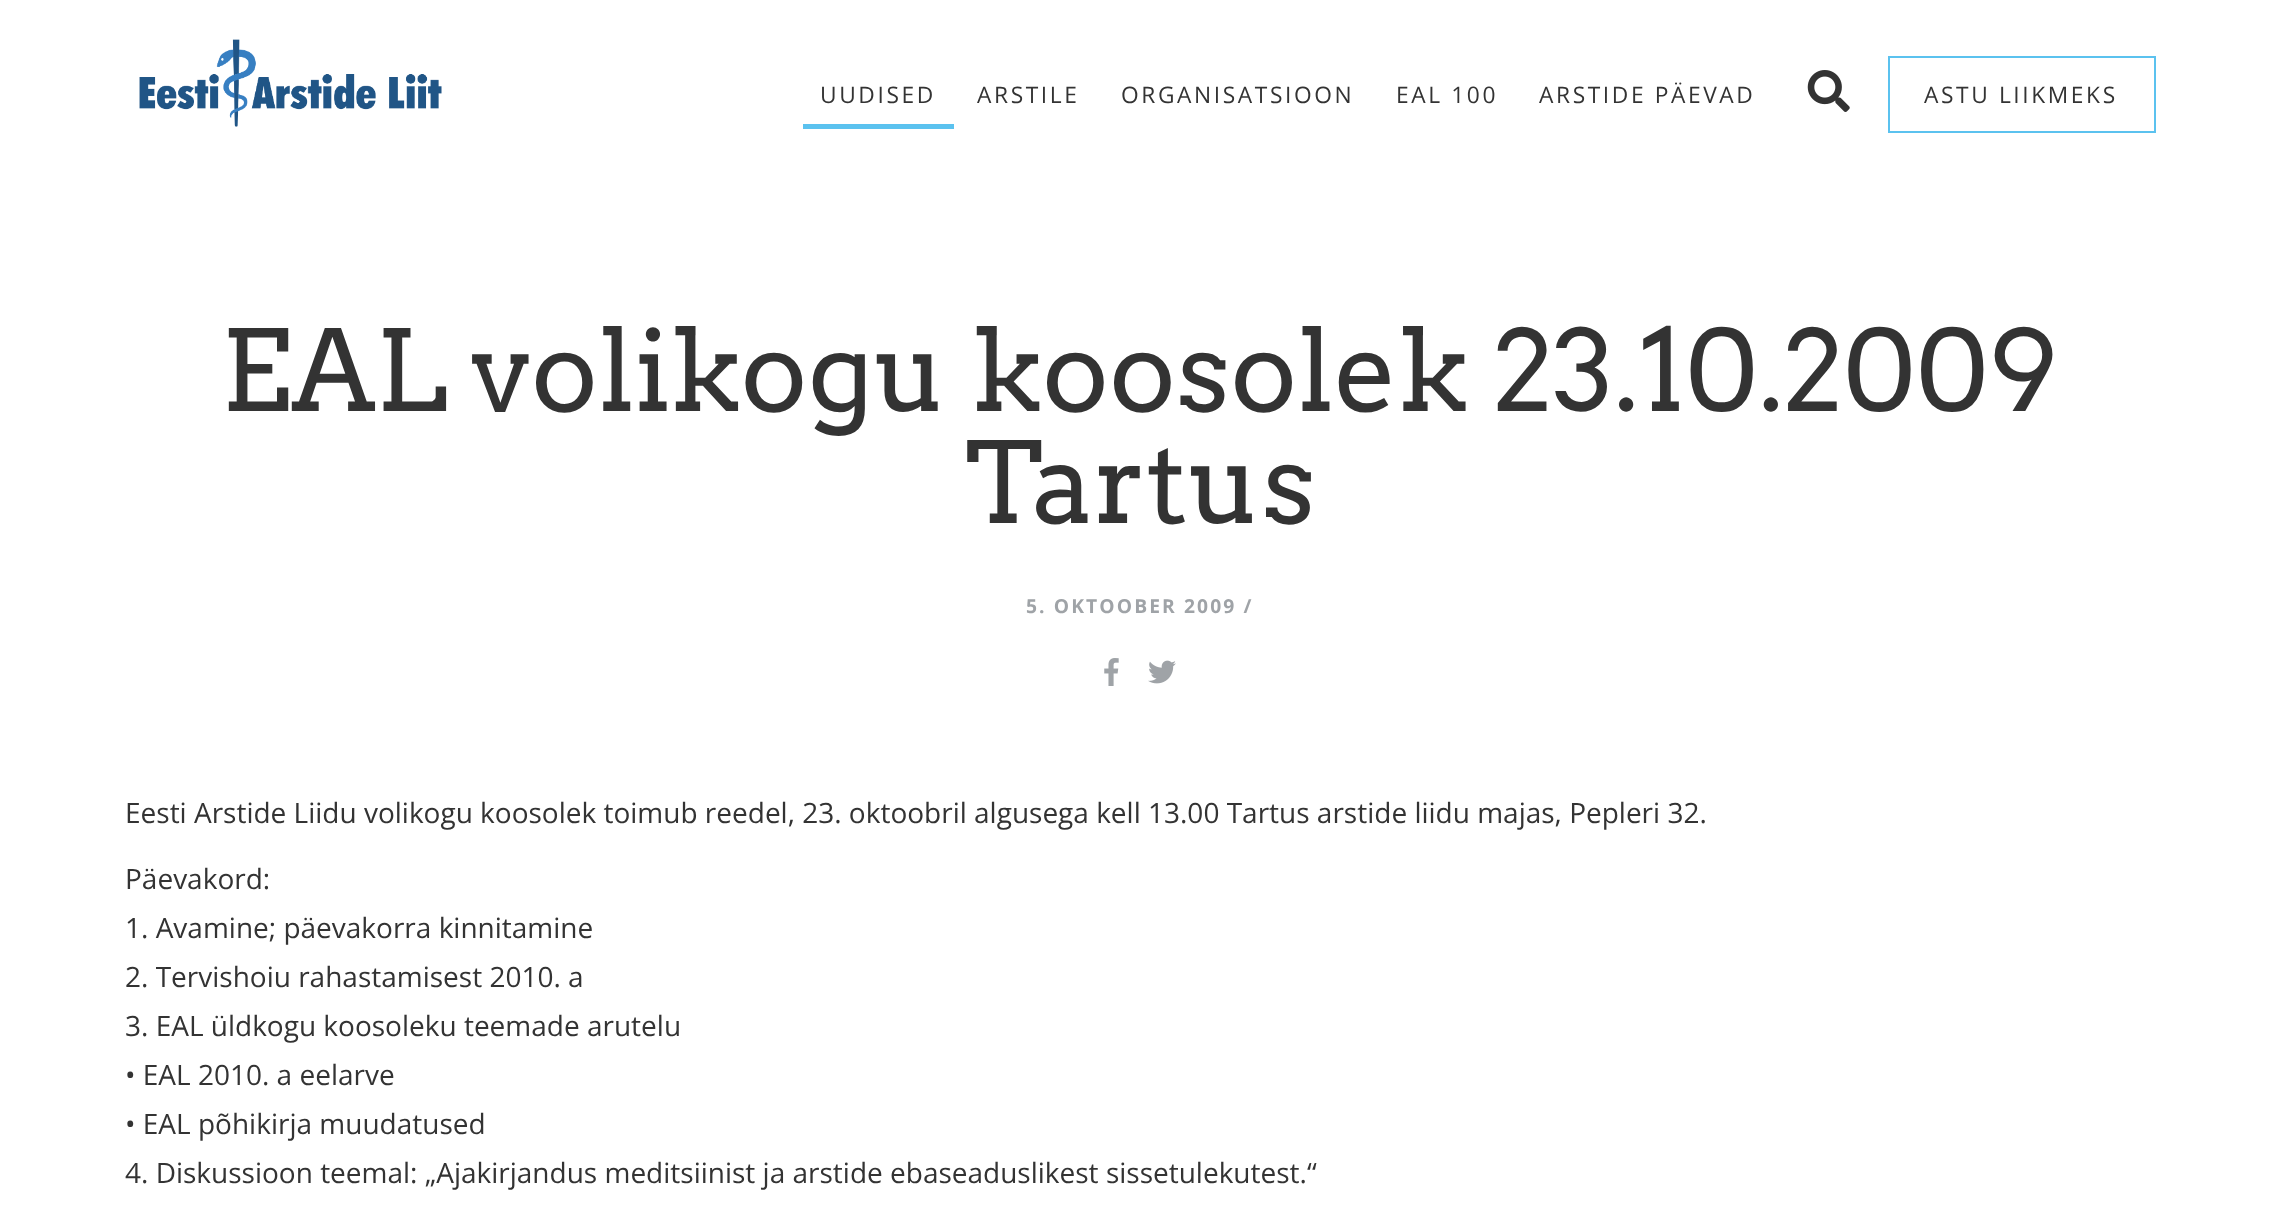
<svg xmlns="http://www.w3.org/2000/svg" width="2280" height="1219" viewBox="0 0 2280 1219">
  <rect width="100%" height="100%" fill="#ffffff"/>
  <image x="139" y="39" width="303" height="88" href="img1.png"/>
  <rect x="803" y="124" width="151" height="5" fill="#5bc2ef"/>
  <text x="820" y="103" font-family="Open Sans" font-size="22.75" letter-spacing="2.6" fill="#333333">UUDISED</text>
  <text x="977" y="103" font-family="Open Sans" font-size="22.75" letter-spacing="2.6" fill="#333333">ARSTILE</text>
  <text x="1121" y="103" font-family="Open Sans" font-size="22.75" letter-spacing="2.6" fill="#333333">ORGANISATSIOON</text>
  <text x="1396" y="103" font-family="Open Sans" font-size="22.75" letter-spacing="2.6" fill="#333333">EAL 100</text>
  <text x="1539" y="103" font-family="Open Sans" font-size="22.75" letter-spacing="2.6" fill="#333333">ARSTIDE PÄEVAD</text>
  <image x="1807" y="70" width="43" height="42" href="img2.png"/>
  <rect x="1889" y="57" width="266" height="75" fill="none" stroke="#5bc2ef" stroke-width="2"/>
  <text x="1924" y="103" font-family="Open Sans" font-size="22.75" letter-spacing="2.6" fill="#333333">ASTU LIIKMEKS</text>
  <text x="221" y="411" font-family="Arvo" font-size="112" fill="#333333">EAL volikogu koosolek 23.10.2009</text>
  <text x="965" y="523" font-family="Arvo" font-size="112" fill="#333333">Tartus</text>
  <text x="1026" y="613" font-family="Open Sans" font-size="19.25" font-weight="bold" letter-spacing="2.1" fill="#9fa3a7">5. OKTOOBER 2009 /</text>
  <image x="1104" y="658" width="15" height="28" href="img3.png"/>
  <image x="1148" y="660" width="28" height="24" href="img4.png"/>
  <text x="125" y="823" font-family="Open Sans" font-size="28" fill="#333333">Eesti Arstide Liidu volikogu koosolek toimub reedel, 23. oktoobril algusega kell 13.00 Tartus arstide liidu majas, Pepleri 32.</text>
  <text x="125" y="889" font-family="Open Sans" font-size="28" fill="#333333">Päevakord:</text>
  <text x="125" y="938" font-family="Open Sans" font-size="28" fill="#333333">1. Avamine; päevakorra kinnitamine</text>
  <text x="125" y="987" font-family="Open Sans" font-size="28" fill="#333333">2. Tervishoiu rahastamisest 2010. a</text>
  <text x="125" y="1036" font-family="Open Sans" font-size="28" fill="#333333">3. EAL üldkogu koosoleku teemade arutelu</text>
  <text x="125" y="1085" font-family="Open Sans" font-size="28" fill="#333333">• EAL 2010. a eelarve</text>
  <text x="125" y="1134" font-family="Open Sans" font-size="28" fill="#333333">• EAL põhikirja muudatused</text>
  <text x="125" y="1183" font-family="Open Sans" font-size="28" fill="#333333">4. Diskussioon teemal: „Ajakirjandus meditsiinist ja arstide ebaseaduslikest sissetulekutest.“</text>
</svg>
